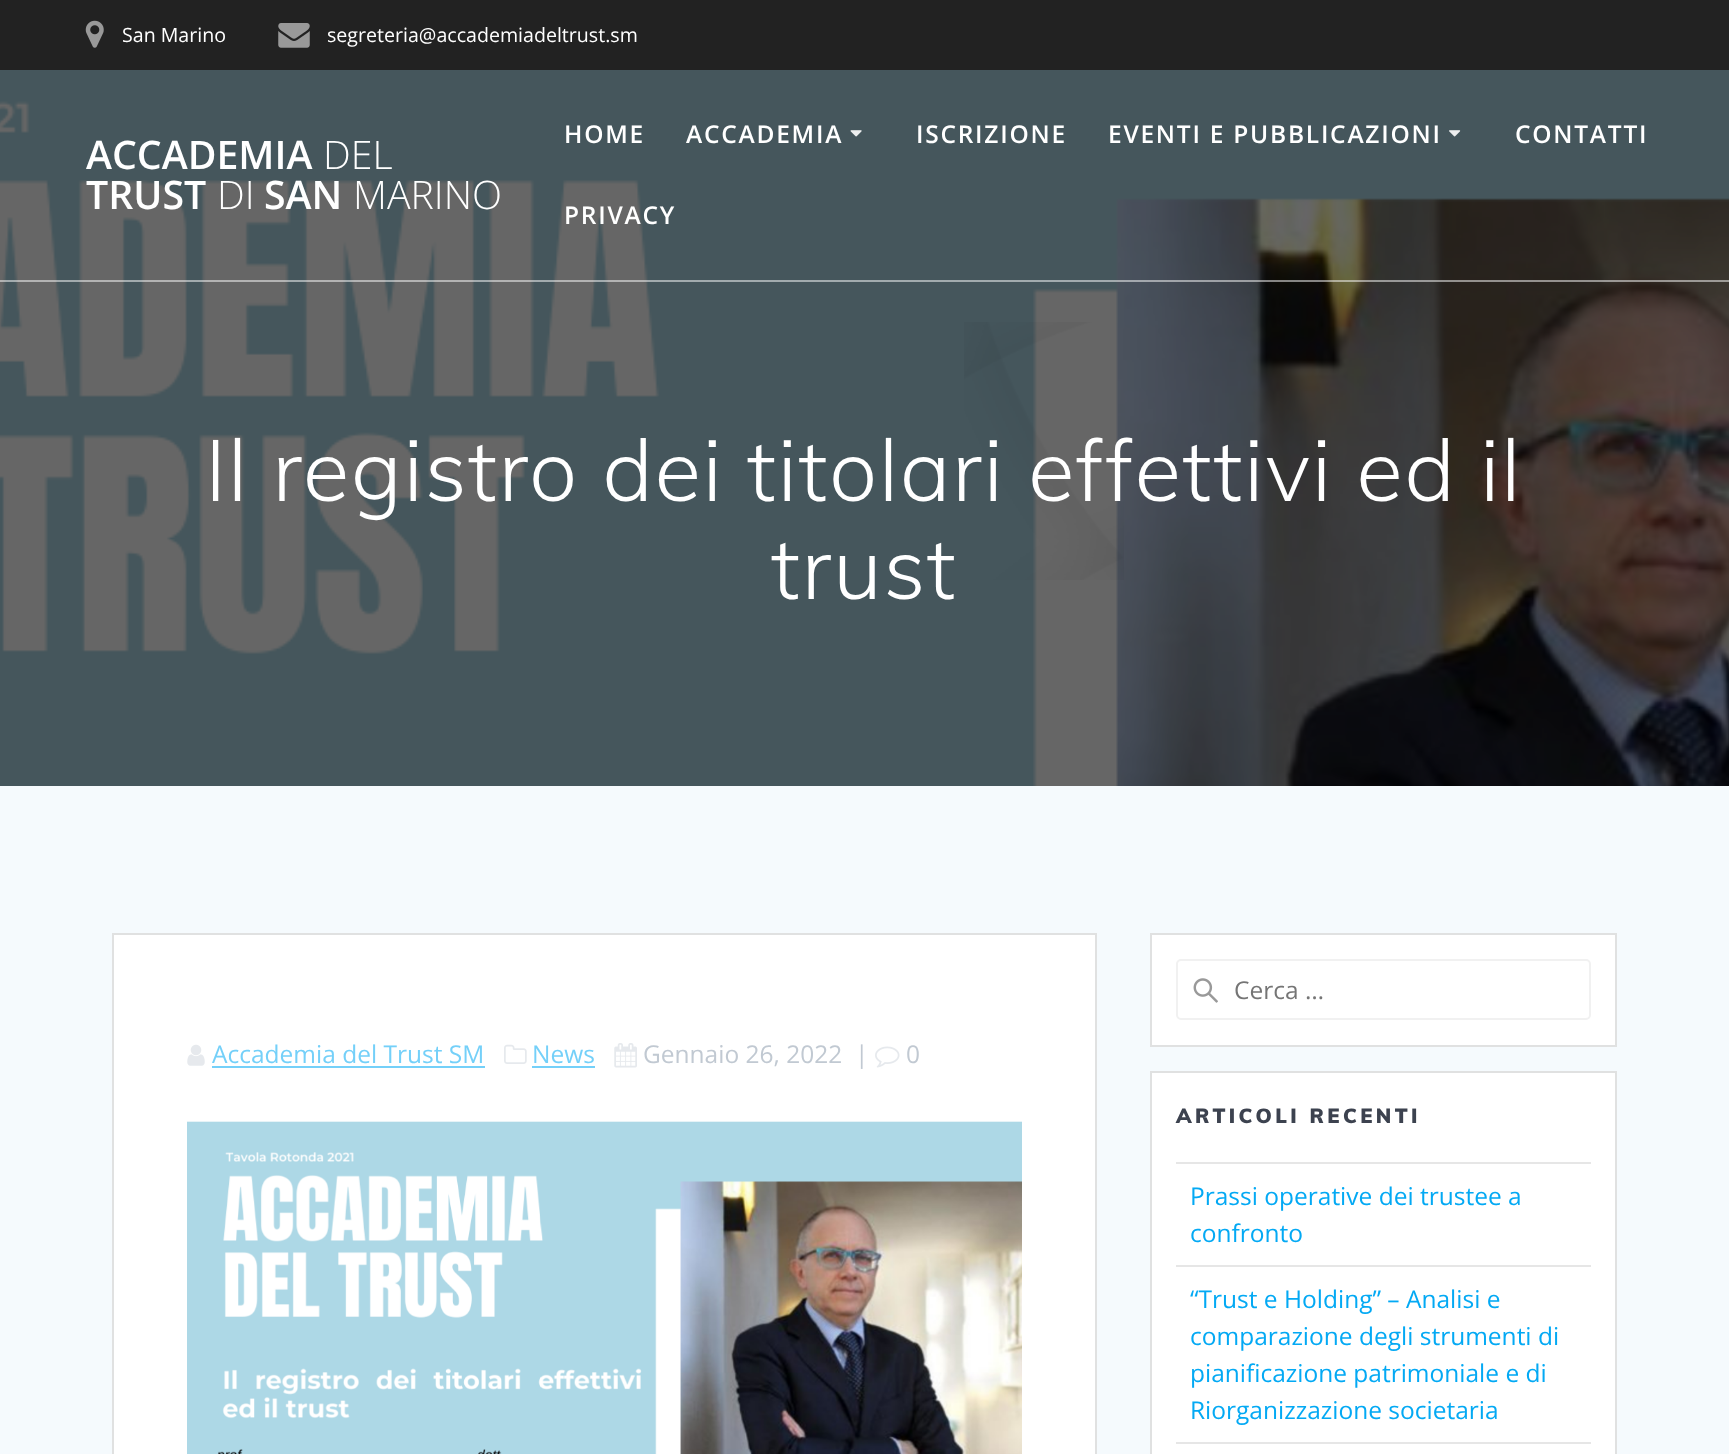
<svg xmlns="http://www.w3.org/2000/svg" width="1729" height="1454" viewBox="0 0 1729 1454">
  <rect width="100%" height="100%" fill="#ffffff"/>
  <rect x="0" y="0" width="1729" height="70" fill="#222222"/>
  <image x="85" y="20" width="19" height="28" href="img1.png"/>
  <text x="122" y="42" font-family="Open Sans" font-size="19.6" fill="#ffffff">San Marino</text>
  <image x="278" y="23" width="32" height="25" href="img2.png"/>
  <text x="327" y="42" font-family="Open Sans" font-size="19.6" fill="#ffffff">segreteria@accademiadeltrust.sm</text>
  <image x="0" y="70" width="1729" height="716" href="img5.png"/>
  <rect x="0" y="280" width="1729" height="2" fill="#ffffff" fill-opacity="0.5"/>
  <text x="86" y="169" font-family="Open Sans" font-size="39.25" font-weight="600" fill="#ffffff">ACCADEMIA</text>
  <text x="323" y="169" font-family="Open Sans" font-size="39.25" font-weight="300" fill="#ffffff">DEL</text>
  <text x="86" y="209" font-family="Open Sans" font-size="39.25" font-weight="600" fill="#ffffff">TRUST</text>
  <text x="217" y="209" font-family="Open Sans" font-size="39.25" font-weight="300" fill="#ffffff">DI</text>
  <text x="264" y="209" font-family="Open Sans" font-size="39.25" font-weight="600" fill="#ffffff">SAN</text>
  <text x="353" y="209" font-family="Open Sans" font-size="39.25" font-weight="300" fill="#ffffff">MARINO</text>
  <text x="564" y="143" font-family="Open Sans" font-size="24.5" font-weight="600" letter-spacing="1.75" fill="#ffffff">HOME</text>
  <text x="686" y="143" font-family="Open Sans" font-size="24.5" font-weight="600" letter-spacing="1.75" fill="#ffffff">ACCADEMIA</text>
  <image x="850" y="130" width="12" height="7" href="img3.png"/>
  <text x="916" y="143" font-family="Open Sans" font-size="24.5" font-weight="600" letter-spacing="1.75" fill="#ffffff">ISCRIZIONE</text>
  <text x="1108" y="143" font-family="Open Sans" font-size="24.5" font-weight="600" letter-spacing="1.75" fill="#ffffff">EVENTI E PUBBLICAZIONI</text>
  <image x="1449" y="130" width="12" height="7" href="img4.png"/>
  <text x="1515" y="143" font-family="Open Sans" font-size="24.5" font-weight="600" letter-spacing="1.75" fill="#ffffff">CONTATTI</text>
  <text x="564" y="224" font-family="Open Sans" font-size="24.5" font-weight="600" letter-spacing="1.75" fill="#ffffff">PRIVACY</text>
  <image x="964" y="322" width="160" height="258" href="img6.png"/>
  <text x="205" y="501" font-family="Muli" font-size="85.75" font-weight="300" letter-spacing="1.55" fill="#ffffff">Il registro dei titolari effettivi ed il</text>
  <text x="771" y="599" font-family="Muli" font-size="85.75" font-weight="300" letter-spacing="1.55" fill="#ffffff">trust</text>
  <rect x="0" y="786" width="1729" height="668" fill="#f5fafd"/>
  <rect x="113" y="934" width="983" height="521" fill="#ffffff" stroke="#e0e1e1" stroke-width="2"/>
  <image x="187" y="1044" width="18" height="22" href="img7.png"/>
  <text x="212" y="1063" font-family="Open Sans" font-size="24.5" fill="#74d0f9">Accademia del Trust SM</text>
  <rect x="212" y="1066" width="273" height="2" fill="#74d0f9"/>
  <image x="504" y="1044" width="23" height="20" href="img8.png"/>
  <text x="532" y="1063" font-family="Open Sans" font-size="24.5" fill="#74d0f9">News</text>
  <rect x="532" y="1066" width="63" height="2" fill="#74d0f9"/>
  <image x="614" y="1043" width="23" height="25" href="img9.png"/>
  <text x="643" y="1063" font-family="Open Sans" font-size="24.5" fill="#c1c9d2">Gennaio 26, 2022</text>
  <text x="855" y="1063" font-family="Open Sans" font-size="24.5" fill="#c1c9d2">|</text>
  <image x="875" y="1046" width="25" height="22" href="img10.png"/>
  <text x="906" y="1063" font-family="Open Sans" font-size="24.5" fill="#c1c9d2">0</text>
  <image x="187" y="1121" width="835" height="333" href="img11.png"/>
  <rect x="1151" y="934" width="465" height="112" fill="#ffffff" stroke="#e0e1e1" stroke-width="2"/>
  <image x="1193" y="978" width="25" height="25" href="img12.png"/>
  <rect x="1177" y="960" width="413" height="59" rx="4" fill="none" stroke="#f1f1f1" stroke-width="2"/>
  <text x="1234" y="999" font-family="Open Sans" font-size="24.5" fill="#757575">Cerca …</text>
  <rect x="1151" y="1072" width="465" height="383" fill="#ffffff" stroke="#e0e1e1" stroke-width="2"/>
  <text x="1176" y="1123" font-family="Muli" font-size="20.25" font-weight="900" letter-spacing="3.4" fill="#3c424f">ARTICOLI RECENTI</text>
  <rect x="1176" y="1162" width="415" height="2" fill="#e6e6e6"/>
  <text x="1190" y="1205" font-family="Open Sans" font-size="24.5" fill="#03a9f4">Prassi operative dei trustee a</text>
  <text x="1190" y="1242" font-family="Open Sans" font-size="24.5" fill="#03a9f4">confronto</text>
  <rect x="1176" y="1265" width="415" height="2" fill="#e6e6e6"/>
  <text x="1190" y="1308" font-family="Open Sans" font-size="24.5" fill="#03a9f4">“Trust e Holding” – Analisi e</text>
  <text x="1190" y="1345" font-family="Open Sans" font-size="24.5" fill="#03a9f4">comparazione degli strumenti di</text>
  <text x="1190" y="1382" font-family="Open Sans" font-size="24.5" fill="#03a9f4">pianificazione patrimoniale e di</text>
  <text x="1190" y="1419" font-family="Open Sans" font-size="24.5" fill="#03a9f4">Riorganizzazione societaria</text>
  <rect x="1176" y="1442" width="415" height="2" fill="#e6e6e6"/>
</svg>
